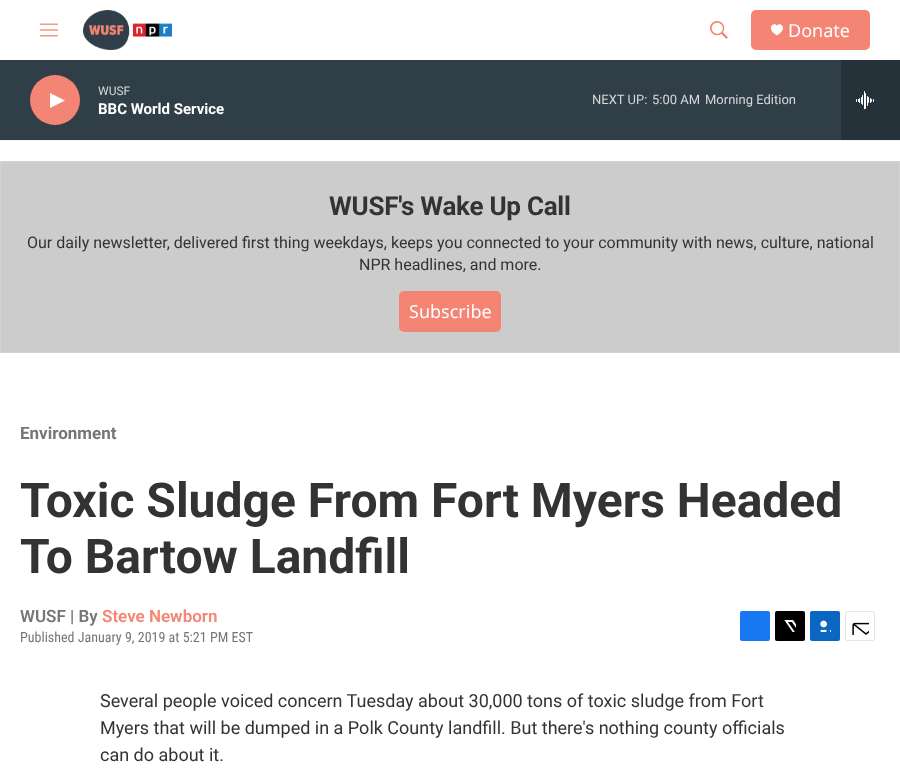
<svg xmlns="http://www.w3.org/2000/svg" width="900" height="771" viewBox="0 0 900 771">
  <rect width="100%" height="100%" fill="#ffffff"/>
  <rect x="0" y="140" width="900" height="1" fill="#f5f5f5"/>
  <image x="40" y="23" width="18" height="14" href="img1.png"/>
  <image x="83" y="10" width="89" height="40" href="img2.png"/>
  <image x="710" y="21" width="18" height="18" href="img3.png"/>
  <rect x="751" y="10" width="119" height="40" rx="5" fill="#f48474"/>
  <path d="M777 26C775 21 764.5 28 777 35.5C789.5 28 779 21 777 26Z" fill="#ffffff"/>
  <text x="788" y="37" font-family="Noto Sans" font-size="18" fill="#ffffff">Donate</text>
  <rect x="0" y="60" width="841" height="80" fill="#303e48"/>
  <circle cx="55" cy="100" r="25" fill="#f48474"/>
  <path d="M50 93L65 100.5L50 108Z" fill="#ffffff"/>
  <text x="98" y="95" font-family="Roboto" font-size="12" fill="#d6d8da">WUSF</text>
  <text x="98" y="114" font-family="'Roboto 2'" font-size="15" font-weight="bold" fill="#ffffff">BBC World Service</text>
  <text x="592" y="104" font-family="Roboto" font-size="13" fill="#d6d8da">NEXT UP:</text>
  <text x="652" y="104" font-family="Roboto" font-size="13" fill="#d6d8da">5:00 AM</text>
  <text x="705" y="104" font-family="Roboto" font-size="13" fill="#d6d8da">Morning Edition</text>
  <rect x="841" y="60" width="59" height="80" fill="#26323a"/>
  <image x="856" y="91" width="18" height="18" href="img4.png"/>
  <rect x="0.5" y="161.5" width="899" height="191" fill="#cccccc" stroke="#d3d3d3"/>
  <text x="329" y="215" font-family="Roboto" font-size="26" font-weight="bold" letter-spacing="-0.25" fill="#333333">WUSF's Wake Up Call</text>
  <text x="27" y="248" font-family="Roboto" font-size="16" fill="#333333">Our daily newsletter, delivered first thing weekdays, keeps you connected to your community with news, culture, national</text>
  <text x="359" y="270" font-family="Roboto" font-size="16" fill="#333333">NPR headlines, and more.</text>
  <rect x="399" y="291" width="102" height="41" rx="5" fill="#f48474"/>
  <text x="409" y="318" font-family="Noto Sans" font-size="18" fill="#ffffff">Subscribe</text>
  <text x="20" y="439" font-family="Roboto" font-size="17" font-weight="bold" fill="#767676">Environment</text>
  <text x="20" y="517" font-family="Roboto" font-size="48" font-weight="bold" fill="#333333">Toxic Sludge From Fort Myers Headed</text>
  <text x="20" y="573" font-family="Roboto" font-size="48" font-weight="bold" fill="#333333">To Bartow Landfill</text>
  <text x="20" y="622" font-family="Roboto" font-size="17" font-weight="600" fill="#767676">WUSF | By</text>
  <text x="102" y="622" font-family="Roboto" font-size="17" font-weight="600" fill="#f48474">Steve Newborn</text>
  <text x="20" y="642" font-family="Roboto Condensed" font-size="14" fill="#767676">Published January 9, 2019 at 5:21 PM EST</text>
  <rect x="740" y="611" width="30" height="30" rx="2" fill="#1778f2"/>
  <rect x="775" y="611" width="30" height="30" rx="2" fill="#000000"/>
  <image x="784" y="620" width="12" height="12" href="img5.png"/>
  <rect x="810" y="611" width="30" height="30" rx="2" fill="#0a66c1"/>
  <image x="820" y="620" width="11" height="12" href="img6.png"/>
  <rect x="845.5" y="611.5" width="29" height="29" rx="1.5" fill="none" stroke="#e6e6e6"/>
  <image x="852" y="622" width="17" height="13" href="img7.png"/>
  <text x="100" y="707" font-family="Roboto" font-size="18" fill="#333333">Several people voiced concern Tuesday about 30,000 tons of toxic sludge from Fort</text>
  <text x="100" y="734" font-family="Roboto" font-size="18" fill="#333333">Myers that will be dumped in a Polk County landfill. But there's nothing county officials</text>
  <text x="100" y="761" font-family="Roboto" font-size="18" fill="#333333">can do about it.</text>
</svg>
